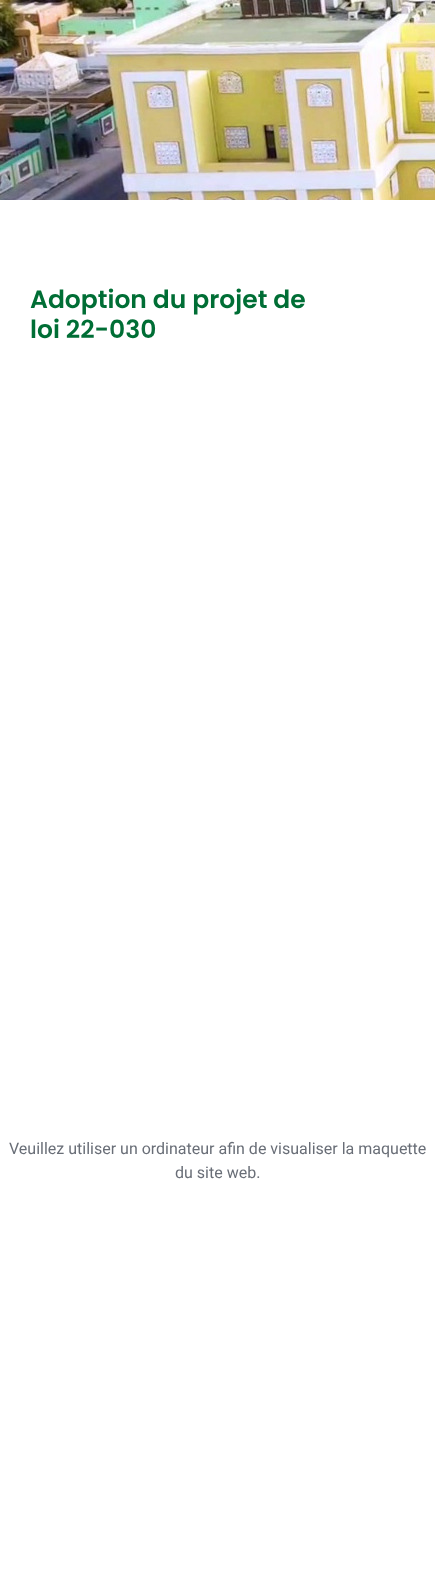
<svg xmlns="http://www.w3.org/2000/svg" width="435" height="1578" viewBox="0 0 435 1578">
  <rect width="100%" height="100%" fill="#ffffff"/>
  <image x="0" y="0" width="435" height="200" href="img1.png"/>
  <text x="30" y="308" font-family="Poppins" font-size="25" font-weight="600" fill="#006e35">Adoption du projet de</text>
  <text x="30" y="338" font-family="Poppins" font-size="25" font-weight="600" fill="#006e35">loi 22-030</text>
  <text x="9" y="1154" font-family="Roboto" font-size="16" fill="#696e77">Veuillez utiliser un ordinateur afin de visualiser la maquette</text>
  <text x="175" y="1178" font-family="Roboto" font-size="16" fill="#696e77">du site web.</text>
</svg>
